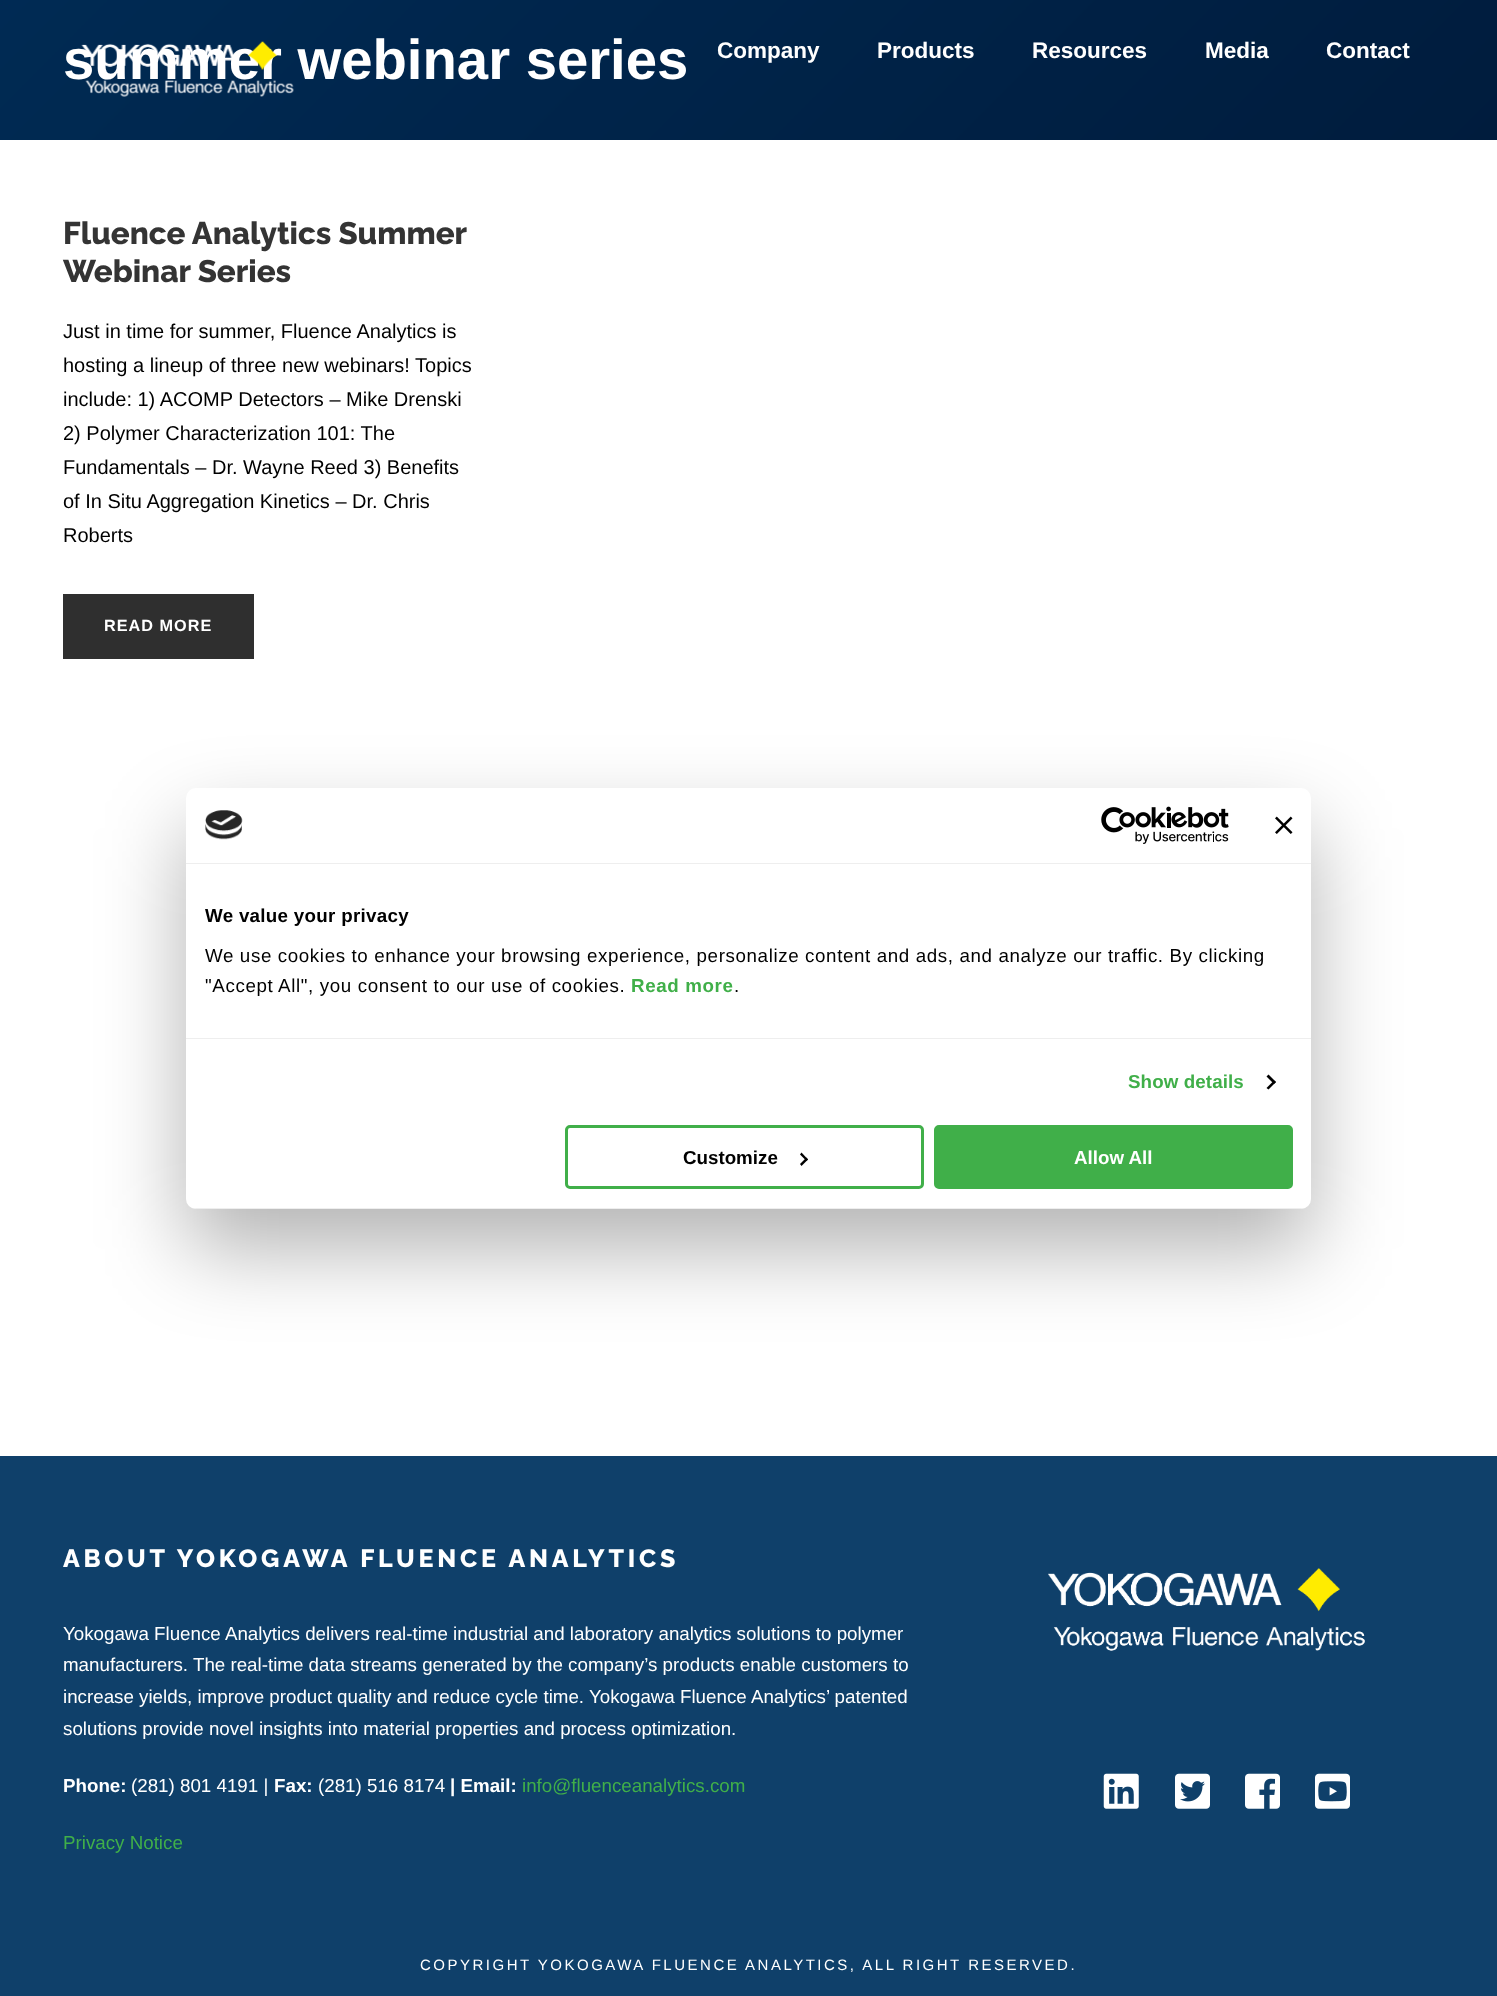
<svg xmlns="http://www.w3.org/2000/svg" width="1497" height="1996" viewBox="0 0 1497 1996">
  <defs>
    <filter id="blur1" x="-50%" y="-200%" width="200%" height="500%"><feGaussianBlur stdDeviation="42.5"/></filter>
    <clipPath id="clip1"><rect x="186" y="788" width="1125" height="421" rx="10"/></clipPath>
  </defs>
  <rect width="100%" height="100%" fill="#ffffff"/>
  <image x="0" y="0" width="1497" height="140" href="img1.png"/>
  <text x="63" y="79" font-family="Liberation Sans" font-size="56.25" font-weight="bold" fill="#ffffff">summer webinar series</text>
  <image x="81" y="41" width="213" height="56" href="img2.png"/>
  <text x="717" y="58" font-family="Liberation Sans" font-size="22.5" font-weight="bold" fill="#ffffff">Company</text>
  <text x="877" y="58" font-family="Liberation Sans" font-size="22.5" font-weight="bold" fill="#ffffff">Products</text>
  <text x="1032" y="58" font-family="Liberation Sans" font-size="22.5" font-weight="bold" fill="#ffffff">Resources</text>
  <text x="1205" y="58" font-family="Liberation Sans" font-size="22.5" font-weight="bold" fill="#ffffff">Media</text>
  <text x="1326" y="58" font-family="Liberation Sans" font-size="22.5" font-weight="bold" fill="#ffffff">Contact</text>
  <text x="63" y="244" font-family="Raleway" font-size="31.25" font-weight="800" fill="#343434">Fluence Analytics Summer</text>
  <text x="63" y="282" font-family="Raleway" font-size="31.25" font-weight="800" fill="#343434">Webinar Series</text>
  <text x="63" y="338" font-family="Liberation Sans" font-size="20" fill="#000000">Just in time for summer, Fluence Analytics is</text>
  <text x="63" y="372" font-family="Liberation Sans" font-size="20" fill="#000000">hosting a lineup of three new webinars! Topics</text>
  <text x="63" y="406" font-family="Liberation Sans" font-size="20" fill="#000000">include: 1) ACOMP Detectors – Mike Drenski</text>
  <text x="63" y="440" font-family="Liberation Sans" font-size="20" fill="#000000">2) Polymer Characterization 101: The</text>
  <text x="63" y="474" font-family="Liberation Sans" font-size="20" fill="#000000">Fundamentals – Dr. Wayne Reed 3) Benefits</text>
  <text x="63" y="508" font-family="Liberation Sans" font-size="20" fill="#000000">of In Situ Aggregation Kinetics – Dr. Chris</text>
  <text x="63" y="542" font-family="Liberation Sans" font-size="20" fill="#000000">Roberts</text>
  <rect x="63" y="594" width="191" height="65" fill="#2f2f2f"/>
  <text x="104" y="631" font-family="Liberation Sans" font-size="16.25" font-weight="bold" letter-spacing="1" fill="#ffffff">READ MORE</text>
  <rect x="0" y="1456" width="1497" height="540" fill="#0f406a"/>
  <text x="63" y="1567" font-family="Raleway" font-size="25" font-weight="800" letter-spacing="3.75" fill="#ffffff">ABOUT YOKOGAWA FLUENCE ANALYTICS</text>
  <text x="63" y="1640" font-family="Liberation Sans" font-size="18.75" fill="#ffffff">Yokogawa Fluence Analytics delivers real-time industrial and laboratory analytics solutions to polymer</text>
  <text x="63" y="1671" font-family="Liberation Sans" font-size="18.75" fill="#ffffff">manufacturers. The real-time data streams generated by the company’s products enable customers to</text>
  <text x="63" y="1703" font-family="Liberation Sans" font-size="18.75" fill="#ffffff">increase yields, improve product quality and reduce cycle time. Yokogawa Fluence Analytics’ patented</text>
  <text x="63" y="1735" font-family="Liberation Sans" font-size="18.75" fill="#ffffff">solutions provide novel insights into material properties and process optimization.</text>
  <text x="63" y="1792" font-family="Liberation Sans" font-size="18.75" font-weight="bold" fill="#ffffff">Phone:</text>
  <text x="131" y="1792" font-family="Liberation Sans" font-size="18.75" fill="#ffffff">(281) 801 4191 |</text>
  <text x="274" y="1792" font-family="Liberation Sans" font-size="18.75" font-weight="bold" fill="#ffffff">Fax:</text>
  <text x="318" y="1792" font-family="Liberation Sans" font-size="18.75" fill="#ffffff">(281) 516 8174</text>
  <text x="450" y="1792" font-family="Liberation Sans" font-size="18.75" font-weight="bold" fill="#ffffff">| Email:</text>
  <text x="522" y="1792" font-family="Liberation Sans" font-size="18.75" fill="#40af49">info@fluenceanalytics.com</text>
  <text x="63" y="1849" font-family="Liberation Sans" font-size="18.75" fill="#40af49">Privacy Notice</text>
  <image x="1048" y="1568" width="317" height="83" href="img3.png"/>
  <image x="1103" y="1773" width="36" height="36" href="img4.png"/>
  <image x="1175" y="1773" width="35" height="36" href="img5.png"/>
  <image x="1245" y="1773" width="35" height="36" href="img6.png"/>
  <image x="1315" y="1773" width="35" height="36" href="img7.png"/>
  <text x="420" y="1970" font-family="Liberation Sans" font-size="15" letter-spacing="2.5" fill="#ffffff">COPYRIGHT YOKOGAWA FLUENCE ANALYTICS, ALL RIGHT RESERVED.</text>
  <rect x="186" y="828" width="1125" height="421" rx="10" fill="#000000" fill-opacity="0.3" filter="url(#blur1)"/>
  <rect x="186" y="788" width="1125" height="421" rx="10" fill="#ffffff"/>
  <rect x="186" y="863" width="1125" height="1" fill="#eeeeee"/>
  <image x="205" y="810" width="38" height="30" href="img8.png"/>
  <image x="1101" y="806" width="128" height="38" href="img9.png"/>
  <image x="1275" y="816" width="18" height="18" href="img10.png"/>
  <rect x="186" y="1038" width="1125" height="1" fill="#eeeeee"/>
  <text x="205" y="922" font-family="Liberation Sans" font-size="18.75" font-weight="bold" letter-spacing="0.3" fill="#000000">We value your privacy</text>
  <text x="205" y="962" font-family="Liberation Sans" font-size="18.75" letter-spacing="0.62" fill="#000000">We use cookies to enhance your browsing experience, personalize content and ads, and analyze our traffic. By clicking</text>
  <text x="205" y="992" font-family="Liberation Sans" font-size="18.75" letter-spacing="0.62" fill="#000000">"Accept All", you consent to our use of cookies.</text>
  <text x="631" y="992" font-family="Liberation Sans" font-size="18.75" font-weight="bold" letter-spacing="0.62" fill="#40af49">Read more</text>
  <text x="734" y="992" font-family="Liberation Sans" font-size="18.75" letter-spacing="0.62" fill="#000000">.</text>
  <text x="1128" y="1088" font-family="Liberation Sans" font-size="18.75" font-weight="bold" letter-spacing="0.1" fill="#40af49">Show details</text>
  <path d="M1268.5 1074.5L1276 1082L1274 1084L1266.5 1076.5Z" fill="#000000"/>
  <path d="M1274 1080.5L1276 1082L1268.5 1089.5L1266.5 1088Z" fill="#000000"/>
  <g clip-path="url(#clip1)">
    <rect x="186" y="1208" width="1125" height="1" fill="#eeeeee"/>
  </g>
  <rect x="566.5" y="1126.5" width="356" height="61" rx="3.5" fill="none" stroke="#40af49" stroke-width="3"/>
  <text x="683" y="1164" font-family="Liberation Sans" font-size="18.75" font-weight="bold" fill="#000000">Customize</text>
  <path d="M801.5 1152.5L808 1159.5L806.5 1161L800 1154.5Z" fill="#000000"/>
  <path d="M806.5 1157.5L808 1159.5L801.5 1166L800 1164Z" fill="#000000"/>
  <rect x="935.5" y="1126.5" width="356" height="61" rx="3.5" fill="#40af49" stroke="#40af49" stroke-width="3"/>
  <text x="1074" y="1164" font-family="Liberation Sans" font-size="18.75" font-weight="bold" fill="#ffffff">Allow All</text>
</svg>
